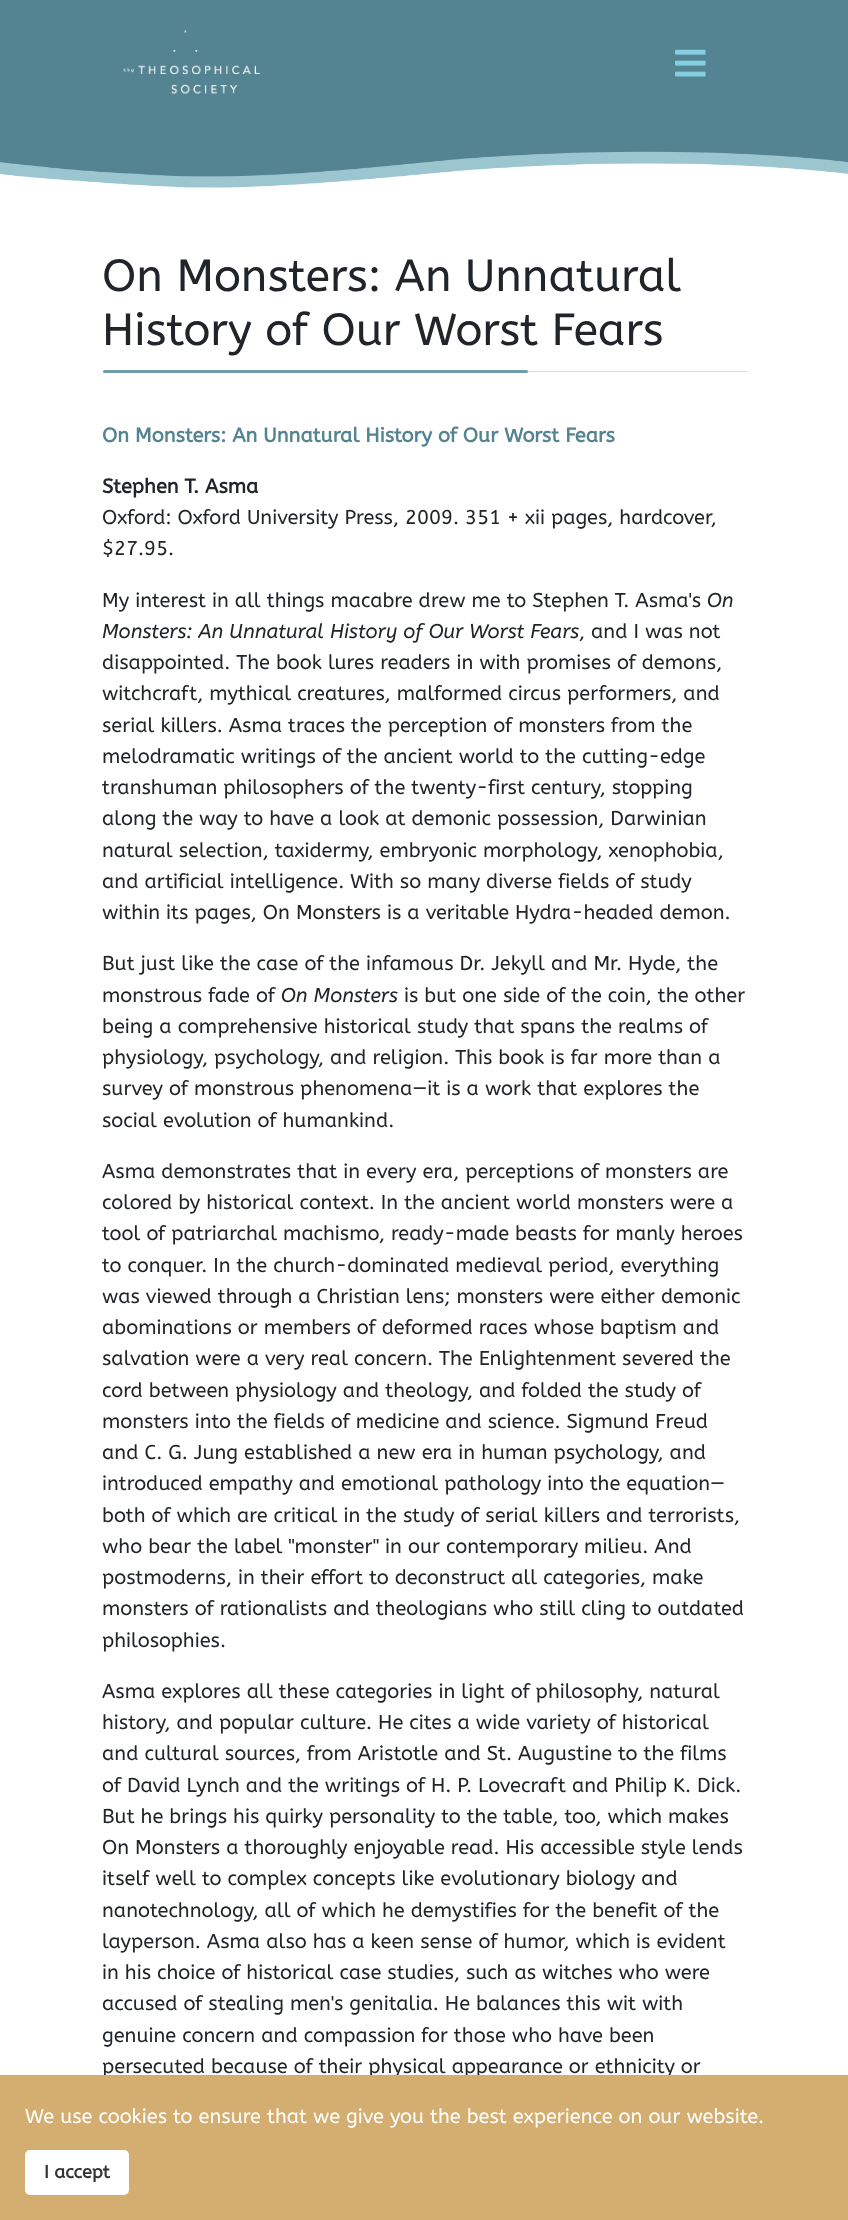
<svg xmlns="http://www.w3.org/2000/svg" width="848" height="2220" viewBox="0 0 848 2220">
  <rect width="100%" height="100%" fill="#ffffff"/>
  <image x="0" y="0" width="848" height="188" href="img1.png"/>
  <image x="123" y="30" width="137" height="64" href="img2.png"/>
  <image x="675" y="49" width="31" height="28" href="img3.png"/>
  <rect x="103" y="371" width="645" height="1" fill="#dddddd"/>
  <text x="102" y="291" font-family="ABeeZee" font-size="45" fill="#212529">On Monsters: An Unnatural</text>
  <text x="102" y="345" font-family="ABeeZee" font-size="45" fill="#212529">History of Our Worst Fears</text>
  <rect x="103" y="370" width="425" height="3" rx="1.5" fill="#6e9cab"/>
  <text x="102" y="442" font-family="ABeeZee" font-size="20" font-weight="bold" fill="#548392">On Monsters: An Unnatural History of Our Worst Fears</text>
  <text x="102" y="493" font-family="ABeeZee" font-size="20" font-weight="bold" fill="#212529">Stephen T. Asma</text>
  <text x="102" y="524" font-family="ABeeZee" font-size="20" fill="#212529">Oxford: Oxford University Press, 2009. 351 + xii pages, hardcover,</text>
  <text x="102" y="555" font-family="ABeeZee" font-size="20" fill="#212529">$27.95.</text>
  <text x="102" y="607" font-family="ABeeZee" font-size="20" fill="#212529">My interest in all things macabre drew me to Stephen T. Asma's</text>
  <text x="707" y="607" font-family="ABeeZee" font-size="20" font-style="italic" fill="#212529">On</text>
  <text x="102" y="638" font-family="ABeeZee" font-size="20" font-style="italic" fill="#212529">Monsters: An Unnatural History of Our Worst Fears</text>
  <text x="579" y="638" font-family="ABeeZee" font-size="20" fill="#212529">, and I was not</text>
  <text x="102" y="669" font-family="ABeeZee" font-size="20" fill="#212529">disappointed. The book lures readers in with promises of demons,</text>
  <text x="102" y="700" font-family="ABeeZee" font-size="20" fill="#212529">witchcraft, mythical creatures, malformed circus performers, and</text>
  <text x="102" y="732" font-family="ABeeZee" font-size="20" fill="#212529">serial killers. Asma traces the perception of monsters from the</text>
  <text x="102" y="763" font-family="ABeeZee" font-size="20" fill="#212529">melodramatic writings of the ancient world to the cutting-edge</text>
  <text x="102" y="794" font-family="ABeeZee" font-size="20" fill="#212529">transhuman philosophers of the twenty-first century, stopping</text>
  <text x="102" y="825" font-family="ABeeZee" font-size="20" fill="#212529">along the way to have a look at demonic possession, Darwinian</text>
  <text x="102" y="857" font-family="ABeeZee" font-size="20" fill="#212529">natural selection, taxidermy, embryonic morphology, xenophobia,</text>
  <text x="102" y="888" font-family="ABeeZee" font-size="20" fill="#212529">and artificial intelligence. With so many diverse fields of study</text>
  <text x="102" y="919" font-family="ABeeZee" font-size="20" fill="#212529">within its pages, On Monsters is a veritable Hydra-headed demon.</text>
  <text x="102" y="970" font-family="ABeeZee" font-size="20" fill="#212529">But just like the case of the infamous Dr. Jekyll and Mr. Hyde, the</text>
  <text x="102" y="1002" font-family="ABeeZee" font-size="20" fill="#212529">monstrous fade of</text>
  <text x="281" y="1002" font-family="ABeeZee" font-size="20" font-style="italic" fill="#212529">On Monsters</text>
  <text x="404" y="1002" font-family="ABeeZee" font-size="20" fill="#212529">is but one side of the coin, the other</text>
  <text x="102" y="1033" font-family="ABeeZee" font-size="20" fill="#212529">being a comprehensive historical study that spans the realms of</text>
  <text x="102" y="1064" font-family="ABeeZee" font-size="20" fill="#212529">physiology, psychology, and religion. This book is far more than a</text>
  <text x="102" y="1095" font-family="ABeeZee" font-size="20" fill="#212529">survey of monstrous phenomena—it is a work that explores the</text>
  <text x="102" y="1127" font-family="ABeeZee" font-size="20" fill="#212529">social evolution of humankind.</text>
  <text x="102" y="1178" font-family="ABeeZee" font-size="20" fill="#212529">Asma demonstrates that in every era, perceptions of monsters are</text>
  <text x="102" y="1209" font-family="ABeeZee" font-size="20" fill="#212529">colored by historical context. In the ancient world monsters were a</text>
  <text x="102" y="1240" font-family="ABeeZee" font-size="20" fill="#212529">tool of patriarchal machismo, ready-made beasts for manly heroes</text>
  <text x="102" y="1272" font-family="ABeeZee" font-size="20" fill="#212529">to conquer. In the church-dominated medieval period, everything</text>
  <text x="102" y="1303" font-family="ABeeZee" font-size="20" fill="#212529">was viewed through a Christian lens; monsters were either demonic</text>
  <text x="102" y="1334" font-family="ABeeZee" font-size="20" fill="#212529">abominations or members of deformed races whose baptism and</text>
  <text x="102" y="1365" font-family="ABeeZee" font-size="20" fill="#212529">salvation were a very real concern. The Enlightenment severed the</text>
  <text x="102" y="1397" font-family="ABeeZee" font-size="20" fill="#212529">cord between physiology and theology, and folded the study of</text>
  <text x="102" y="1428" font-family="ABeeZee" font-size="20" fill="#212529">monsters into the fields of medicine and science. Sigmund Freud</text>
  <text x="102" y="1459" font-family="ABeeZee" font-size="20" fill="#212529">and C. G. Jung established a new era in human psychology, and</text>
  <text x="102" y="1490" font-family="ABeeZee" font-size="20" fill="#212529">introduced empathy and emotional pathology into the equation—</text>
  <text x="102" y="1522" font-family="ABeeZee" font-size="20" fill="#212529">both of which are critical in the study of serial killers and terrorists,</text>
  <text x="102" y="1553" font-family="ABeeZee" font-size="20" fill="#212529">who bear the label "monster" in our contemporary milieu. And</text>
  <text x="102" y="1584" font-family="ABeeZee" font-size="20" fill="#212529">postmoderns, in their effort to deconstruct all categories, make</text>
  <text x="102" y="1615" font-family="ABeeZee" font-size="20" fill="#212529">monsters of rationalists and theologians who still cling to outdated</text>
  <text x="102" y="1647" font-family="ABeeZee" font-size="20" fill="#212529">philosophies.</text>
  <text x="102" y="1698" font-family="ABeeZee" font-size="20" fill="#212529">Asma explores all these categories in light of philosophy, natural</text>
  <text x="102" y="1729" font-family="ABeeZee" font-size="20" fill="#212529">history, and popular culture. He cites a wide variety of historical</text>
  <text x="102" y="1760" font-family="ABeeZee" font-size="20" fill="#212529">and cultural sources, from Aristotle and St. Augustine to the films</text>
  <text x="102" y="1792" font-family="ABeeZee" font-size="20" fill="#212529">of David Lynch and the writings of H. P. Lovecraft and Philip K. Dick.</text>
  <text x="102" y="1823" font-family="ABeeZee" font-size="20" fill="#212529">But he brings his quirky personality to the table, too, which makes</text>
  <text x="102" y="1854" font-family="ABeeZee" font-size="20" fill="#212529">On Monsters a thoroughly enjoyable read. His accessible style lends</text>
  <text x="102" y="1885" font-family="ABeeZee" font-size="20" fill="#212529">itself well to complex concepts like evolutionary biology and</text>
  <text x="102" y="1917" font-family="ABeeZee" font-size="20" fill="#212529">nanotechnology, all of which he demystifies for the benefit of the</text>
  <text x="102" y="1948" font-family="ABeeZee" font-size="20" fill="#212529">layperson. Asma also has a keen sense of humor, which is evident</text>
  <text x="102" y="1979" font-family="ABeeZee" font-size="20" fill="#212529">in his choice of historical case studies, such as witches who were</text>
  <text x="102" y="2010" font-family="ABeeZee" font-size="20" fill="#212529">accused of stealing men's genitalia. He balances this wit with</text>
  <text x="102" y="2042" font-family="ABeeZee" font-size="20" fill="#212529">genuine concern and compassion for those who have been</text>
  <text x="102" y="2073" font-family="ABeeZee" font-size="20" fill="#212529">persecuted because of their physical appearance or ethnicity or</text>
  <rect x="0" y="2075" width="848" height="145" fill="#d4ae70"/>
  <text x="25" y="2123" font-family="ABeeZee" font-size="20" fill="#ffffff">We use cookies to ensure that we give you the best experience on our website.</text>
  <rect x="25" y="2150" width="104" height="45" rx="5" fill="#ffffff"/>
  <text x="44" y="2178" font-family="ABeeZee" font-size="18" font-weight="bold" fill="#333333">I accept</text>
</svg>
